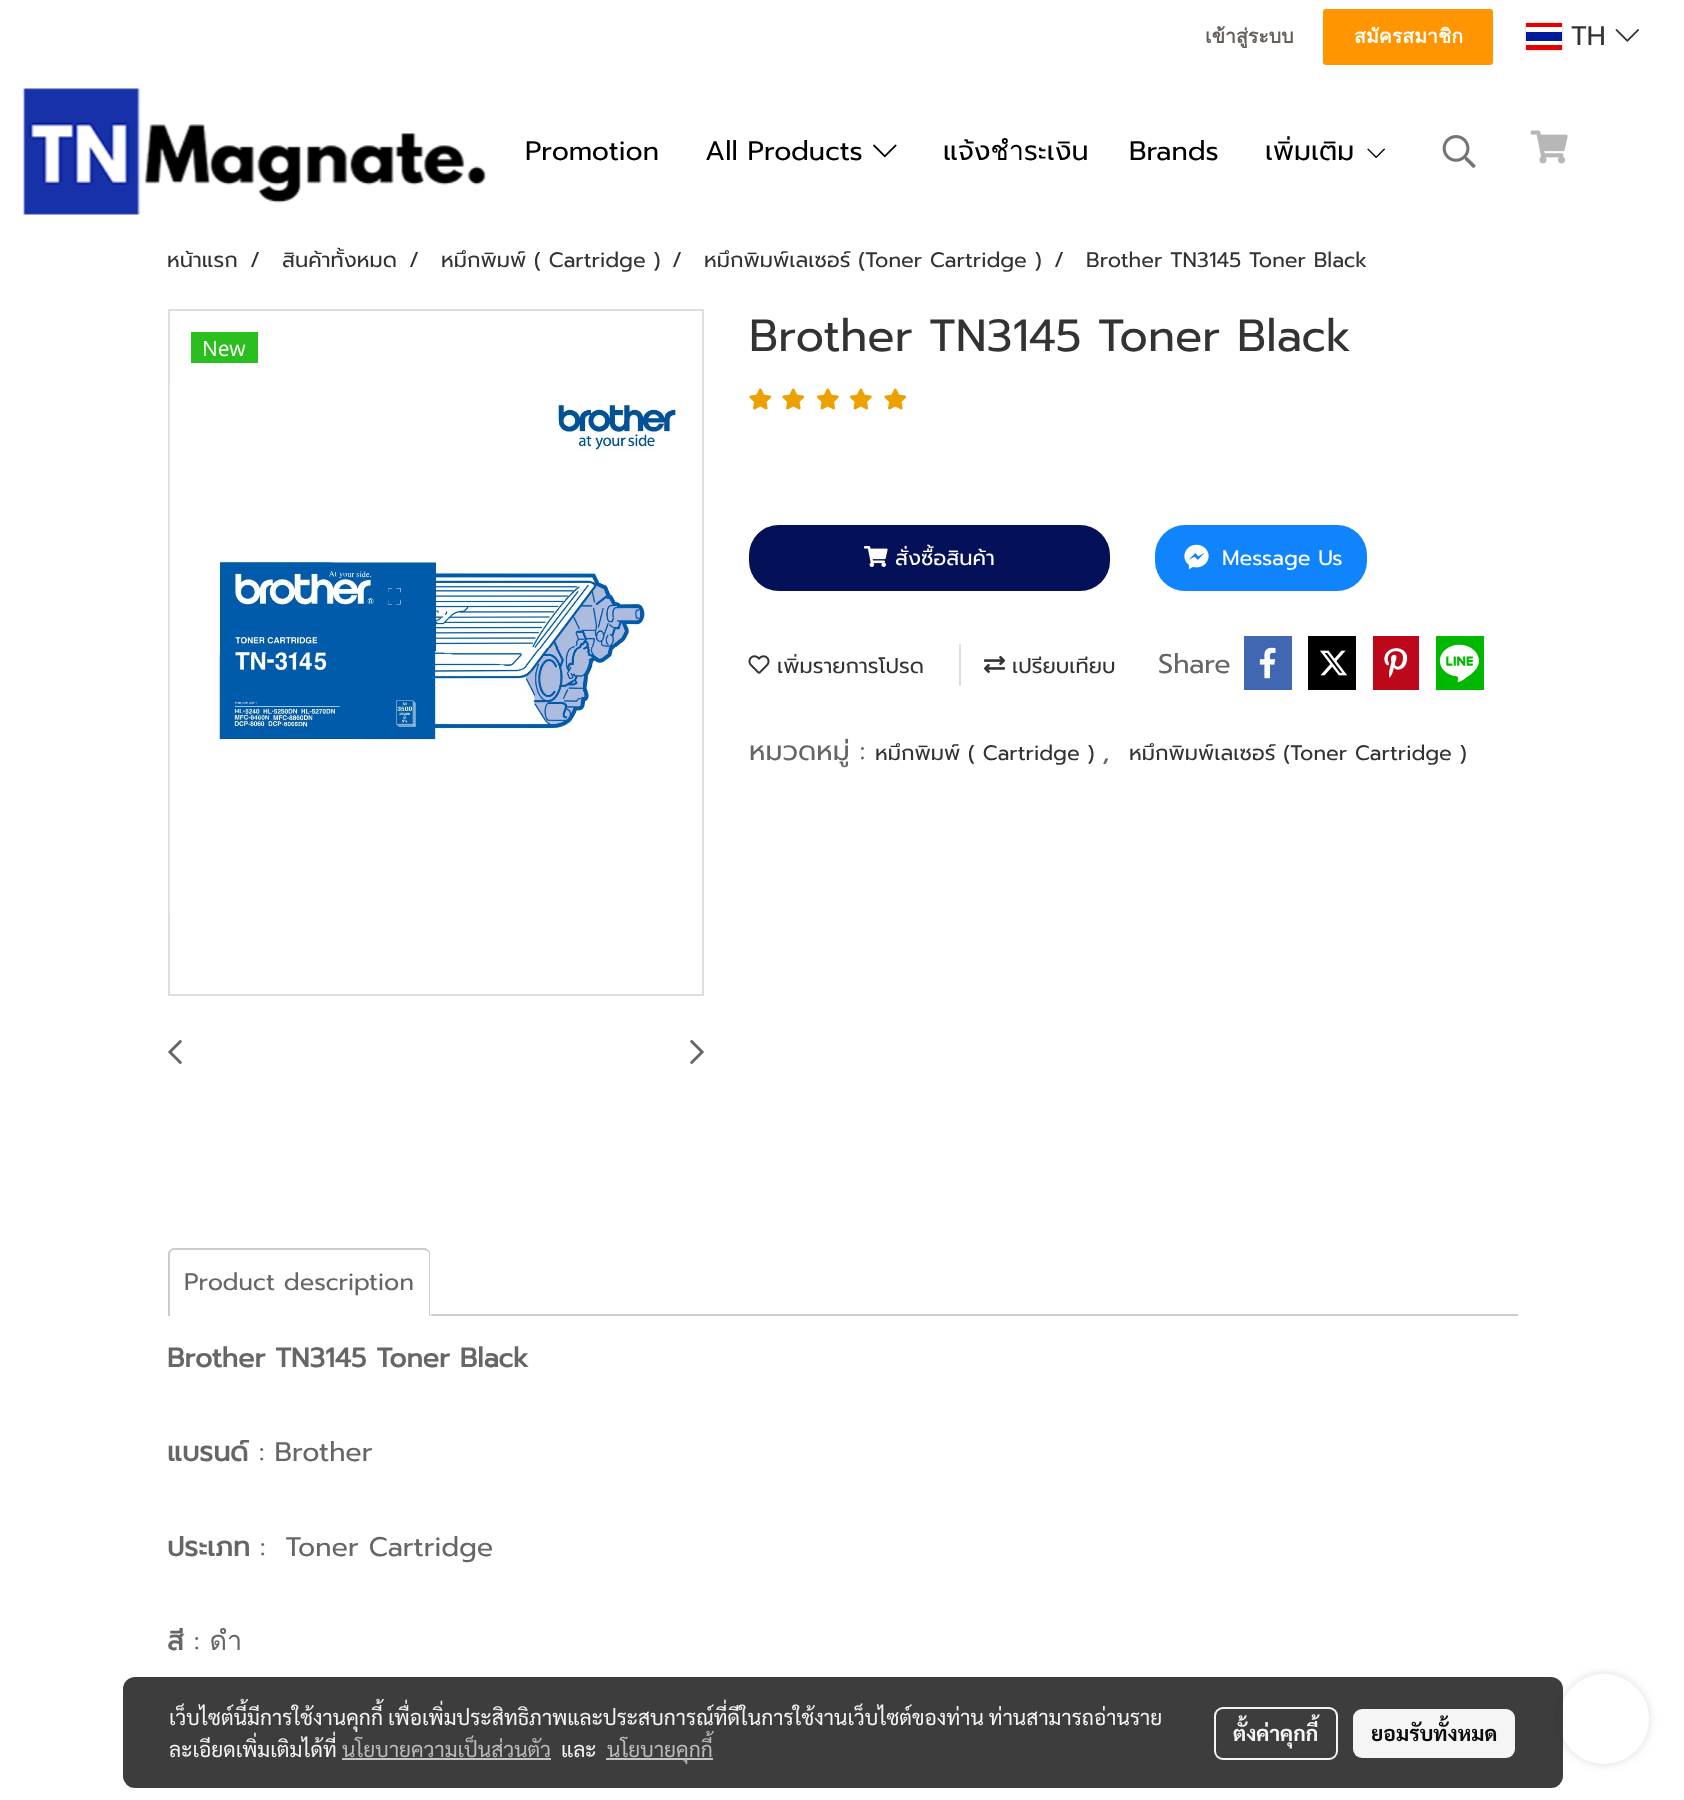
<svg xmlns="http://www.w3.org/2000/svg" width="1684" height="1800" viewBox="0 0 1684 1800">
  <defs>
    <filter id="blur1" x="-50%" y="-200%" width="200%" height="500%"><feGaussianBlur stdDeviation="1.5"/></filter>
    <filter id="blur2" x="-50%" y="-200%" width="200%" height="500%"><feGaussianBlur stdDeviation="5"/></filter>
  </defs>
  <rect width="100%" height="100%" fill="#ffffff"/>
  <text x="1205" y="43" font-family="Loma" font-size="19.5" font-weight="bold" fill="#65605c">เข้าสู่ระบบ</text>
  <rect x="1323" y="9" width="170" height="56" rx="3" fill="#ff9501"/>
  <text x="1354" y="43" font-family="Loma" font-size="19.5" font-weight="bold" fill="#ffffff">สมัครสมาชิก</text>
  <rect x="1526" y="23" width="36" height="27" fill="#000000" fill-opacity="0.25" filter="url(#blur1)"/>
  <rect x="1526" y="27" width="36" height="18" fill="#ffffff"/>
  <rect x="1526" y="32" width="36" height="9" fill="#001b9a"/>
  <rect x="1526" y="23" width="36" height="4" fill="#e70000"/>
  <rect x="1526" y="45" width="36" height="5" fill="#e70000"/>
  <text x="1571" y="45" font-family="Prompt" font-size="27" fill="#333333">TH</text>
  <image x="1615" y="29" width="24" height="13" href="img1.png"/>
  <image x="23" y="88" width="463" height="127" href="img2.png"/>
  <text x="525" y="160" font-family="Prompt" font-size="27" fill="#000000">Promotion</text>
  <text x="705" y="160" font-family="Prompt" font-size="27" fill="#000000">All Products</text>
  <image x="873" y="144" width="24" height="14" href="img3.png"/>
  <text x="943" y="160" font-family="Prompt" font-size="27" fill="#000000">แจ้งชำระเงิน</text>
  <text x="1129" y="160" font-family="Prompt" font-size="27" fill="#000000">Brands</text>
  <text x="1265" y="160" font-family="Prompt" font-size="27" fill="#000000">เพิ่มเติม</text>
  <image x="1367" y="148" width="18" height="10" href="img4.png"/>
  <image x="1442" y="135" width="34" height="33" href="img5.png"/>
  <image x="1530" y="130" width="38" height="34" href="img6.png"/>
  <text x="167" y="267" font-family="Prompt" font-size="21" fill="#333333">หน้าแรก</text>
  <text x="250" y="267" font-family="Prompt" font-size="21" fill="#333333">/</text>
  <text x="282" y="267" font-family="Prompt" font-size="21" fill="#333333">สินค้าทั้งหมด</text>
  <text x="409" y="267" font-family="Prompt" font-size="21" fill="#333333">/</text>
  <text x="441" y="267" font-family="Prompt" font-size="21" fill="#333333">หมึกพิมพ์ ( Cartridge )</text>
  <text x="672" y="267" font-family="Prompt" font-size="21" fill="#333333">/</text>
  <text x="704" y="267" font-family="Prompt" font-size="21" fill="#333333">หมึกพิมพ์เลเซอร์ (Toner Cartridge )</text>
  <text x="1054" y="267" font-family="Prompt" font-size="21" fill="#333333">/</text>
  <text x="1086" y="267" font-family="Prompt" font-size="21" fill="#333333">Brother TN3145 Toner Black</text>
  <rect x="169" y="310" width="534" height="685" fill="none" stroke="#dddddd" stroke-width="2"/>
  <image x="169" y="382" width="512" height="533" href="img7.png"/>
  <rect x="191" y="332" width="67" height="31" fill="#2bbe1f"/>
  <text x="202" y="356" font-family="Open Sans" font-size="21" fill="#ffffff">New</text>
  <image x="168" y="1039" width="14" height="25" href="img8.png"/>
  <image x="690" y="1039" width="14" height="25" href="img9.png"/>
  <text x="749" y="351" font-family="Prompt" font-size="45" fill="#333333">Brother TN3145 Toner Black</text>
  <image x="749" y="388" width="23" height="22" href="img10.png"/>
  <image x="782" y="388" width="23" height="22" href="img10.png"/>
  <image x="816" y="388" width="23" height="22" href="img11.png"/>
  <image x="849" y="388" width="23" height="22" href="img11.png"/>
  <image x="884" y="388" width="23" height="22" href="img10.png"/>
  <rect x="749" y="525" width="361" height="66" rx="30" fill="#041058"/>
  <image x="864" y="546" width="24" height="21" href="img12.png"/>
  <text x="895" y="565" font-family="Prompt" font-size="21" fill="#ffffff">สั่งซื้อสินค้า</text>
  <rect x="1155" y="525" width="212" height="66" rx="30" fill="#0f84fd"/>
  <image x="1184" y="544" width="25" height="26" href="img13.png"/>
  <text x="1222" y="565" font-family="Prompt" font-size="21" fill="#ffffff">Message Us</text>
  <image x="748" y="655" width="22" height="19" href="img14.png"/>
  <text x="777" y="673" font-family="Prompt" font-size="21" fill="#333333">เพิ่มรายการโปรด</text>
  <rect x="959" y="644" width="2" height="42" fill="#dedede"/>
  <image x="984" y="656" width="21" height="17" href="img15.png"/>
  <text x="1012" y="673" font-family="Prompt" font-size="21" fill="#333333">เปรียบเทียบ</text>
  <text x="1158" y="673" font-family="Prompt" font-size="27" fill="#666666">Share</text>
  <rect x="1244" y="636" width="48" height="54" fill="#4267b2"/>
  <image x="1259" y="647" width="17" height="32" href="img16.png"/>
  <rect x="1308" y="636" width="48" height="54" fill="#000000"/>
  <image x="1320" y="650" width="28" height="26" href="img17.png"/>
  <rect x="1373" y="636" width="46" height="54" fill="#bd081c"/>
  <image x="1384" y="648" width="24" height="30" href="img18.png"/>
  <rect x="1436" y="636" width="48" height="54" fill="#00b800"/>
  <image x="1439" y="644" width="40" height="38" href="img19.png"/>
  <text x="749" y="760" font-family="Prompt" font-size="27" fill="#666666">หมวดหมู่ :</text>
  <text x="875" y="760" font-family="Prompt" font-size="21" fill="#333333">หมึกพิมพ์ ( Cartridge )</text>
  <text x="1102" y="760" font-family="Prompt" font-size="27" fill="#666666">,</text>
  <text x="1129" y="760" font-family="Prompt" font-size="21" fill="#333333">หมึกพิมพ์เลเซอร์ (Toner Cartridge )</text>
  <path d="M174 1248H424C428 1248 430 1251 430 1254V1316H168V1254C168 1251 171 1248 174 1248ZM174 1250H424C427 1250 429 1252 429 1254V1316H170V1254C170 1252 172 1250 174 1250Z" fill="#cccccc" fill-rule="evenodd"/>
  <text x="184" y="1290" font-family="Prompt" font-size="24" fill="#666666">Product description</text>
  <rect x="431" y="1314" width="1087" height="2" fill="#cccccc"/>
  <text x="167" y="1367" font-family="Prompt" font-size="27" font-weight="bold" fill="#666666">Brother TN3145 Toner Black</text>
  <text x="167" y="1461" font-family="Prompt" font-size="27" font-weight="bold" fill="#666666">แบรนด์</text>
  <text x="259" y="1461" font-family="Prompt" font-size="27" fill="#666666">: Brother</text>
  <text x="167" y="1556" font-family="Prompt" font-size="27" font-weight="bold" fill="#666666">ประเภท</text>
  <text x="260" y="1556" font-family="Prompt" font-size="27" fill="#666666" xml:space="preserve">:  Toner Cartridge</text>
  <text x="167" y="1650" font-family="Prompt" font-size="27" font-weight="bold" fill="#666666">สี</text>
  <text x="194" y="1650" font-family="Prompt" font-size="27" fill="#666666">: ดำ</text>
  <rect x="1559" y="1674" width="90" height="90" rx="45" fill="#000000" fill-opacity="0.14" filter="url(#blur2)"/>
  <circle cx="1604" cy="1719" r="45" fill="#ffffff"/>
  <rect x="123" y="1677" width="1440" height="111" rx="12" fill="#000000" fill-opacity="0.76"/>
  <text x="169" y="1725" font-family="Sarabun" font-size="21" fill="#f5f5f5">เว็บไซต์นี้มีการใช้งานคุกกี้ เพื่อเพิ่มประสิทธิภาพและประสบการณ์ที่ดีในการใช้งานเว็บไซต์ของท่าน ท่านสามารถอ่านราย</text>
  <text x="169" y="1757" font-family="Sarabun" font-size="21" fill="#f5f5f5">ละเอียดเพิ่มเติมได้ที่</text>
  <text x="342" y="1757" font-family="Sarabun" font-size="21" fill="#bbbbbb">นโยบายความเป็นส่วนตัว</text>
  <rect x="342" y="1758" width="209" height="2" fill="#c5c5c5"/>
  <text x="561" y="1757" font-family="Sarabun" font-size="21" fill="#f5f5f5">และ</text>
  <rect x="606" y="1758" width="107" height="2" fill="#c5c5c5"/>
  <text x="607" y="1757" font-family="Sarabun" font-size="21" fill="#bbbbbb">นโยบายคุกกี้</text>
  <rect x="1215" y="1708" width="122" height="51" rx="8" fill="none" stroke="#ffffff" stroke-opacity="0.95" stroke-width="2"/>
  <text x="1233" y="1741" font-family="Sarabun" font-size="21" font-weight="bold" fill="#f5f5f5">ตั้งค่าคุกกี้</text>
  <rect x="1353" y="1709" width="162" height="49" rx="9" fill="#ffffff" fill-opacity="0.95"/>
  <text x="1371" y="1741" font-family="Sarabun" font-size="21" font-weight="bold" fill="#0c0c0c">ยอมรับทั้งหมด</text>
</svg>
